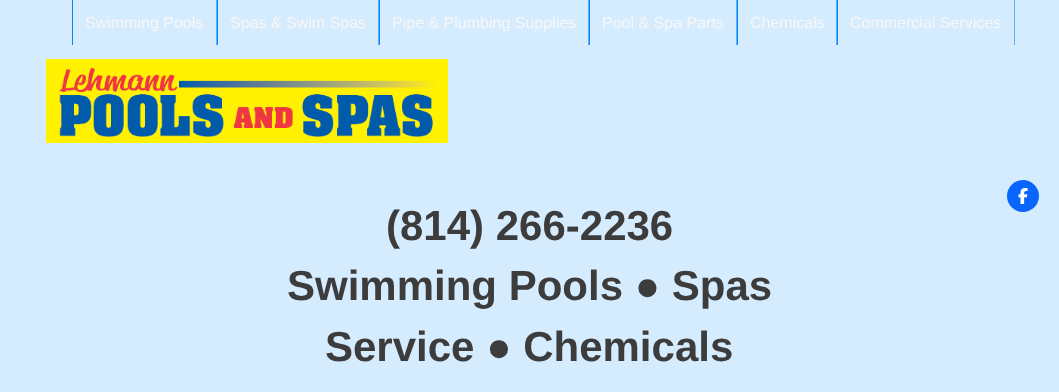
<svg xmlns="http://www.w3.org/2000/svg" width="1059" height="392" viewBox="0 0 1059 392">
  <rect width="100%" height="100%" fill="#d5ebfe"/>
  <rect x="216" y="0" width="1" height="45" fill="#58b0ff"/>
  <rect x="72" y="0" width="1" height="45" fill="#0286f9"/>
  <text x="85" y="28" font-family="Liberation Sans" font-size="16" fill="#f7f7f7">Swimming Pools</text>
  <rect x="378" y="0" width="1" height="45" fill="#58b0ff"/>
  <rect x="217" y="0" width="1" height="45" fill="#0286f9"/>
  <text x="230" y="28" font-family="Liberation Sans" font-size="16" fill="#f7f7f7">Spas &amp; Swim Spas</text>
  <rect x="588" y="0" width="1" height="45" fill="#58b0ff"/>
  <rect x="379" y="0" width="1" height="45" fill="#0286f9"/>
  <text x="392" y="28" font-family="Liberation Sans" font-size="16" fill="#f7f7f7">Pipe &amp; Plumbing Supplies</text>
  <rect x="736" y="0" width="1" height="45" fill="#58b0ff"/>
  <rect x="589" y="0" width="1" height="45" fill="#0286f9"/>
  <text x="602" y="28" font-family="Liberation Sans" font-size="16" fill="#f7f7f7">Pool &amp; Spa Parts</text>
  <rect x="836" y="0" width="1" height="45" fill="#58b0ff"/>
  <rect x="737" y="0" width="1" height="45" fill="#0286f9"/>
  <text x="750" y="28" font-family="Liberation Sans" font-size="16" fill="#f7f7f7">Chemicals</text>
  <rect x="1014" y="0" width="1" height="45" fill="#58b0ff"/>
  <rect x="837" y="0" width="1" height="45" fill="#0286f9"/>
  <text x="850" y="28" font-family="Liberation Sans" font-size="16" fill="#f7f7f7">Commercial Services</text>
  <image x="46" y="59" width="402" height="84" href="img1.png"/>
  <text x="386" y="240" font-family="Liberation Sans" font-size="42" font-weight="bold" fill="#3c3c3c">(814) 266-2236</text>
  <text x="287" y="300" font-family="Liberation Sans" font-size="42" font-weight="bold" fill="#3c3c3c">Swimming Pools ● Spas</text>
  <text x="325" y="361" font-family="Liberation Sans" font-size="42" font-weight="bold" fill="#3c3c3c">Service ● Chemicals</text>
  <circle cx="1023" cy="196" r="16" fill="#0866ff"/>
  <image x="1018" y="188" width="10" height="16" href="img2.png"/>
</svg>
